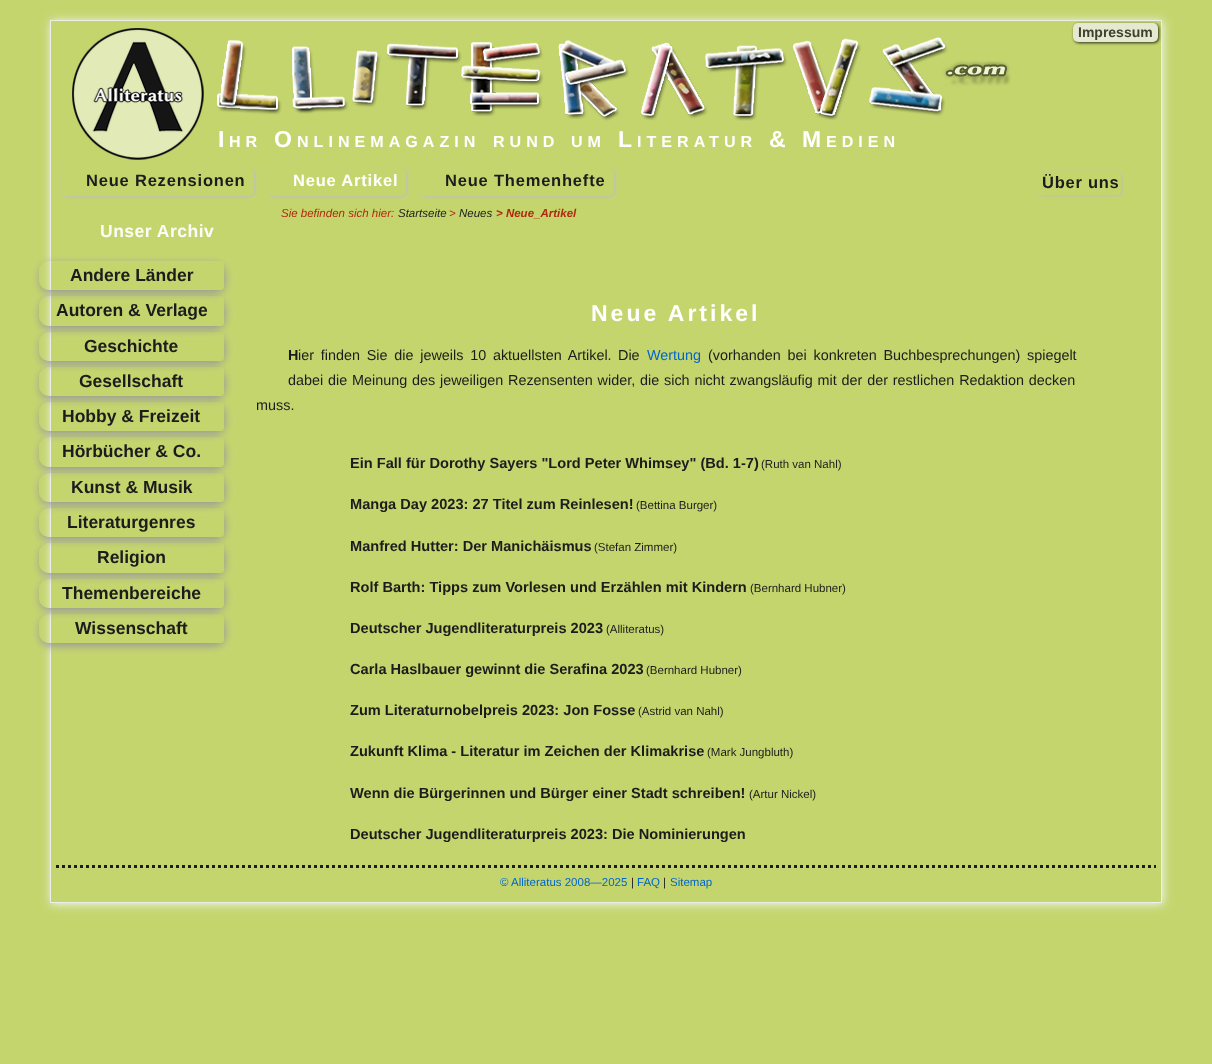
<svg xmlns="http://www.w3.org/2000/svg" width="1212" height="1064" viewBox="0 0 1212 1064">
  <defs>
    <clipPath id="clip1"><path d="M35 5H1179V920H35ZM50 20H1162V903H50Z" clip-rule="evenodd"/></clipPath>
    <filter id="blur1" x="-50%" y="-200%" width="200%" height="500%"><feGaussianBlur stdDeviation="5"/></filter>
    <filter id="blur2" x="-50%" y="-200%" width="200%" height="500%"><feGaussianBlur stdDeviation="1.5"/></filter>
    <clipPath id="clip2"><path d="M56 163H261V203H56ZM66 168H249C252 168 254 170 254 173V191C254 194 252 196 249 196H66C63 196 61 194 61 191V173C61 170 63 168 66 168Z" clip-rule="evenodd"/></clipPath>
    <clipPath id="clip3"><path d="M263 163H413V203H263ZM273 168H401C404 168 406 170 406 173V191C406 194 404 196 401 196H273C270 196 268 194 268 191V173C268 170 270 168 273 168Z" clip-rule="evenodd"/></clipPath>
    <clipPath id="clip4"><path d="M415 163H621V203H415ZM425 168H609C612 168 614 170 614 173V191C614 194 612 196 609 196H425C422 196 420 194 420 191V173C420 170 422 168 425 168Z" clip-rule="evenodd"/></clipPath>
    <clipPath id="clip5"><path d="M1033 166H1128V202H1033ZM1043 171H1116C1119 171 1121 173 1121 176V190C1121 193 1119 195 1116 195H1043C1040 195 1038 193 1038 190V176C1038 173 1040 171 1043 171Z" clip-rule="evenodd"/></clipPath>
    <clipPath id="clip6"><path d="M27 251H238V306H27ZM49 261H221C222.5 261 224 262.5 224 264V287C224 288.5 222.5 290 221 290H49C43.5 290 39 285.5 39 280V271C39 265.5 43.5 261 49 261Z" clip-rule="evenodd"/></clipPath>
    <filter id="blur3" x="-50%" y="-200%" width="200%" height="500%"><feGaussianBlur stdDeviation="4"/></filter>
    <clipPath id="clip7"><path d="M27 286H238V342H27ZM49 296H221C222.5 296 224 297.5 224 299V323C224 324.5 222.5 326 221 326H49C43.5 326 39 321.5 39 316V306C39 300.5 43.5 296 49 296Z" clip-rule="evenodd"/></clipPath>
    <clipPath id="clip8"><path d="M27 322H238V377H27ZM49 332H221C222.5 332 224 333.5 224 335V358C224 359.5 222.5 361 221 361H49C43.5 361 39 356.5 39 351V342C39 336.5 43.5 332 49 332Z" clip-rule="evenodd"/></clipPath>
    <clipPath id="clip9"><path d="M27 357H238V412H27ZM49 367H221C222.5 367 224 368.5 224 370V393C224 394.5 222.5 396 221 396H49C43.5 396 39 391.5 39 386V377C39 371.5 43.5 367 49 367Z" clip-rule="evenodd"/></clipPath>
    <clipPath id="clip10"><path d="M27 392H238V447H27ZM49 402H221C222.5 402 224 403.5 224 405V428C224 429.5 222.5 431 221 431H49C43.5 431 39 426.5 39 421V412C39 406.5 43.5 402 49 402Z" clip-rule="evenodd"/></clipPath>
    <clipPath id="clip11"><path d="M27 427H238V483H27ZM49 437H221C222.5 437 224 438.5 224 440V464C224 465.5 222.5 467 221 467H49C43.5 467 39 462.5 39 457V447C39 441.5 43.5 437 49 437Z" clip-rule="evenodd"/></clipPath>
    <clipPath id="clip12"><path d="M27 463H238V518H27ZM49 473H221C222.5 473 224 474.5 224 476V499C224 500.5 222.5 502 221 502H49C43.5 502 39 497.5 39 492V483C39 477.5 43.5 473 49 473Z" clip-rule="evenodd"/></clipPath>
    <clipPath id="clip13"><path d="M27 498H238V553H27ZM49 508H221C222.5 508 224 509.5 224 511V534C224 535.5 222.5 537 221 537H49C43.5 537 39 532.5 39 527V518C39 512.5 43.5 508 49 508Z" clip-rule="evenodd"/></clipPath>
    <clipPath id="clip14"><path d="M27 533H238V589H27ZM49 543H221C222.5 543 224 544.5 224 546V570C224 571.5 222.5 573 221 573H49C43.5 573 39 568.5 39 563V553C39 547.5 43.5 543 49 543Z" clip-rule="evenodd"/></clipPath>
    <clipPath id="clip15"><path d="M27 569H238V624H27ZM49 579H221C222.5 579 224 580.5 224 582V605C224 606.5 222.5 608 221 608H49C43.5 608 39 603.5 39 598V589C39 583.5 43.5 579 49 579Z" clip-rule="evenodd"/></clipPath>
    <clipPath id="clip16"><path d="M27 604H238V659H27ZM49 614H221C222.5 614 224 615.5 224 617V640C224 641.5 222.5 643 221 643H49C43.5 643 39 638.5 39 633V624C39 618.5 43.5 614 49 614Z" clip-rule="evenodd"/></clipPath>
  </defs>
  <rect width="100%" height="100%" fill="#c5d56e"/>
  <g clip-path="url(#clip1)">
    <rect x="51" y="21" width="1112" height="883" fill="#eff8fb" filter="url(#blur1)"/>
  </g>
  <rect x="50.5" y="20.5" width="1111" height="882" fill="none" stroke="#edeeea"/>
  <image x="72" y="28" width="939" height="132" href="img1.png"/>
  <rect x="1074" y="24" width="85" height="19" rx="5" fill="#000000" fill-opacity="0.8" filter="url(#blur2)"/>
  <rect x="1073" y="23" width="85" height="19" rx="5" fill="#e5e9d1"/>
  <text x="1078" y="37" font-family="Liberation Sans" font-size="14" font-weight="bold" fill="#3e412c">Impressum</text>
  <text x="218" y="147" font-family="Liberation Sans" font-size="23" font-weight="bold" letter-spacing="5" fill="#ffffff">I</text>
  <text x="229" y="147" font-family="Liberation Sans" font-size="16.1" font-weight="bold" letter-spacing="5" fill="#ffffff">HR</text>
  <text x="274" y="147" font-family="Liberation Sans" font-size="23" font-weight="bold" letter-spacing="5" fill="#ffffff">O</text>
  <text x="297" y="147" font-family="Liberation Sans" font-size="16.1" font-weight="bold" letter-spacing="5" fill="#ffffff">NLINEMAGAZIN</text>
  <text x="493" y="147" font-family="Liberation Sans" font-size="16.1" font-weight="bold" letter-spacing="5" fill="#ffffff">RUND</text>
  <text x="571" y="147" font-family="Liberation Sans" font-size="16.1" font-weight="bold" letter-spacing="5" fill="#ffffff">UM</text>
  <text x="618" y="147" font-family="Liberation Sans" font-size="23" font-weight="bold" letter-spacing="5" fill="#ffffff">L</text>
  <text x="637" y="147" font-family="Liberation Sans" font-size="16.1" font-weight="bold" letter-spacing="5" fill="#ffffff">ITERATUR</text>
  <text x="769" y="147" font-family="Liberation Sans" font-size="23" font-weight="bold" letter-spacing="5" fill="#ffffff">&amp; M</text>
  <text x="826" y="147" font-family="Liberation Sans" font-size="16.1" font-weight="bold" letter-spacing="5" fill="#ffffff">EDIEN</text>
  <g clip-path="url(#clip2)">
    <rect x="62" y="169" width="193" height="28" rx="5" fill="#bdbdbd" filter="url(#blur2)"/>
  </g>
  <text x="86" y="186" font-family="Liberation Sans" font-size="16.5" font-weight="bold" letter-spacing="0.8" fill="#1c1c1c">Neue Rezensionen</text>
  <g clip-path="url(#clip3)">
    <rect x="269" y="169" width="138" height="28" rx="5" fill="#bdbdbd" filter="url(#blur2)"/>
  </g>
  <text x="293" y="186" font-family="Liberation Sans" font-size="16.5" font-weight="bold" letter-spacing="0.8" fill="#ffffff">Neue Artikel</text>
  <g clip-path="url(#clip4)">
    <rect x="421" y="169" width="194" height="28" rx="5" fill="#bdbdbd" filter="url(#blur2)"/>
  </g>
  <text x="445" y="186" font-family="Liberation Sans" font-size="16.5" font-weight="bold" letter-spacing="0.8" fill="#1c1c1c">Neue Themenhefte</text>
  <g clip-path="url(#clip5)">
    <rect x="1039" y="172" width="83" height="24" rx="5" fill="#bdbdbd" filter="url(#blur2)"/>
  </g>
  <text x="1042" y="188" font-family="Liberation Sans" font-size="16.5" font-weight="bold" letter-spacing="0.75" fill="#1c1c1c">Über uns</text>
  <text x="100" y="237" font-family="Liberation Sans" font-size="17.5" font-weight="bold" letter-spacing="0.5" fill="#fcfdf8">Unser Archiv</text>
  <text x="281" y="217" font-family="Liberation Sans" font-size="11.5" font-style="italic" fill="#b02910">Sie befinden sich hier:</text>
  <text x="398" y="217" font-family="Liberation Sans" font-size="11.5" font-style="italic" fill="#1c1c1c">Startseite</text>
  <text x="449" y="217" font-family="Liberation Sans" font-size="11.5" font-style="italic" fill="#b02910">&gt;</text>
  <text x="459" y="217" font-family="Liberation Sans" font-size="11.5" font-style="italic" fill="#1c1c1c">Neues</text>
  <text x="496" y="217" font-family="Liberation Sans" font-size="11.5" font-weight="bold" font-style="italic" fill="#b02910">&gt; Neue_Artikel</text>
  <text x="591" y="321" font-family="Liberation Sans" font-size="23" font-weight="bold" letter-spacing="3" fill="#ffffff">Neue Artikel</text>
  <text x="288" y="360" font-family="Liberation Sans" font-size="14.4" font-weight="bold" fill="#1c1c1c">H</text>
  <text x="298" y="360" word-spacing="2.75" font-family="Liberation Sans" font-size="14.4" fill="#1c1c1c">ier finden Sie die jeweils 10 aktuellsten Artikel.</text>
  <text x="618" y="360" font-family="Liberation Sans" font-size="14.4" fill="#1c1c1c">Die</text>
  <text x="647" y="360" font-family="Liberation Sans" font-size="14.4" fill="#0066cc">Wertung</text>
  <text x="708" y="360" word-spacing="2.75" font-family="Liberation Sans" font-size="14.4" fill="#1c1c1c">(vorhanden bei konkreten Buchbesprechungen) spiegelt</text>
  <text x="288" y="385" word-spacing="0.8" font-family="Liberation Sans" font-size="14.4" fill="#1c1c1c">dabei die Meinung des jeweiligen Rezensenten wider, die sich nicht zwangsläufig mit der der restlichen Redaktion decken</text>
  <text x="256" y="410" font-family="Liberation Sans" font-size="14.4" fill="#1c1c1c">muss.</text>
  <text x="350" y="468" font-family="Liberation Sans" font-size="14.6" font-weight="bold" fill="#1c1c1c">Ein Fall für Dorothy Sayers "Lord Peter Whimsey" (Bd. 1-7)</text>
  <text x="761" y="468" font-family="Liberation Sans" font-size="11.5" fill="#1c1c1c">(Ruth van Nahl)</text>
  <text x="350" y="509" font-family="Liberation Sans" font-size="14.6" font-weight="bold" fill="#1c1c1c">Manga Day 2023: 27 Titel zum Reinlesen!</text>
  <text x="636" y="509" font-family="Liberation Sans" font-size="11.5" fill="#1c1c1c">(Bettina Burger)</text>
  <text x="350" y="551" font-family="Liberation Sans" font-size="14.6" font-weight="bold" fill="#1c1c1c">Manfred Hutter: Der Manichäismus</text>
  <text x="594" y="551" font-family="Liberation Sans" font-size="11.5" fill="#1c1c1c">(Stefan Zimmer)</text>
  <text x="350" y="592" font-family="Liberation Sans" font-size="14.6" font-weight="bold" fill="#1c1c1c">Rolf Barth: Tipps zum Vorlesen und Erzählen mit Kindern</text>
  <text x="750" y="592" font-family="Liberation Sans" font-size="11.5" fill="#1c1c1c">(Bernhard Hubner)</text>
  <text x="350" y="633" font-family="Liberation Sans" font-size="14.6" font-weight="bold" fill="#1c1c1c">Deutscher Jugendliteraturpreis 2023</text>
  <text x="606" y="633" font-family="Liberation Sans" font-size="11.5" fill="#1c1c1c">(Alliteratus)</text>
  <text x="350" y="674" font-family="Liberation Sans" font-size="14.6" font-weight="bold" fill="#1c1c1c">Carla Haslbauer gewinnt die Serafina 2023</text>
  <text x="646" y="674" font-family="Liberation Sans" font-size="11.5" fill="#1c1c1c">(Bernhard Hubner)</text>
  <text x="350" y="715" font-family="Liberation Sans" font-size="14.6" font-weight="bold" fill="#1c1c1c">Zum Literaturnobelpreis 2023: Jon Fosse</text>
  <text x="638" y="715" font-family="Liberation Sans" font-size="11.5" fill="#1c1c1c">(Astrid van Nahl)</text>
  <text x="350" y="756" font-family="Liberation Sans" font-size="14.6" font-weight="bold" fill="#1c1c1c">Zukunft Klima - Literatur im Zeichen der Klimakrise</text>
  <text x="707" y="756" font-family="Liberation Sans" font-size="11.5" fill="#1c1c1c">(Mark Jungbluth)</text>
  <text x="350" y="798" font-family="Liberation Sans" font-size="14.6" font-weight="bold" fill="#1c1c1c">Wenn die Bürgerinnen und Bürger einer Stadt schreiben!</text>
  <text x="749" y="798" font-family="Liberation Sans" font-size="11.5" fill="#1c1c1c">(Artur Nickel)</text>
  <text x="350" y="839" font-family="Liberation Sans" font-size="14.6" font-weight="bold" fill="#1c1c1c">Deutscher Jugendliteraturpreis 2023: Die Nominierungen</text>
  <g clip-path="url(#clip6)">
    <rect x="40" y="264" width="185" height="29" rx="10" fill="#989898" filter="url(#blur3)"/>
  </g>
  <text x="70" y="281" font-family="Liberation Sans" font-size="17.5" font-weight="bold" fill="#1c1c1c">Andere Länder</text>
  <g clip-path="url(#clip7)">
    <rect x="40" y="299" width="185" height="30" rx="10" fill="#989898" filter="url(#blur3)"/>
  </g>
  <text x="56" y="316" font-family="Liberation Sans" font-size="17.5" font-weight="bold" fill="#1c1c1c">Autoren &amp; Verlage</text>
  <g clip-path="url(#clip8)">
    <rect x="40" y="335" width="185" height="29" rx="10" fill="#989898" filter="url(#blur3)"/>
  </g>
  <text x="84" y="352" font-family="Liberation Sans" font-size="17.5" font-weight="bold" fill="#1c1c1c">Geschichte</text>
  <g clip-path="url(#clip9)">
    <rect x="40" y="370" width="185" height="29" rx="10" fill="#989898" filter="url(#blur3)"/>
  </g>
  <text x="79" y="387" font-family="Liberation Sans" font-size="17.5" font-weight="bold" fill="#1c1c1c">Gesellschaft</text>
  <g clip-path="url(#clip10)">
    <rect x="40" y="405" width="185" height="29" rx="10" fill="#989898" filter="url(#blur3)"/>
  </g>
  <text x="62" y="422" font-family="Liberation Sans" font-size="17.5" font-weight="bold" fill="#1c1c1c">Hobby &amp; Freizeit</text>
  <g clip-path="url(#clip11)">
    <rect x="40" y="440" width="185" height="30" rx="10" fill="#989898" filter="url(#blur3)"/>
  </g>
  <text x="62" y="457" font-family="Liberation Sans" font-size="17.5" font-weight="bold" fill="#1c1c1c">Hörbücher &amp; Co.</text>
  <g clip-path="url(#clip12)">
    <rect x="40" y="476" width="185" height="29" rx="10" fill="#989898" filter="url(#blur3)"/>
  </g>
  <text x="71" y="493" font-family="Liberation Sans" font-size="17.5" font-weight="bold" fill="#1c1c1c">Kunst &amp; Musik</text>
  <g clip-path="url(#clip13)">
    <rect x="40" y="511" width="185" height="29" rx="10" fill="#989898" filter="url(#blur3)"/>
  </g>
  <text x="67" y="528" font-family="Liberation Sans" font-size="17.5" font-weight="bold" fill="#1c1c1c">Literaturgenres</text>
  <g clip-path="url(#clip14)">
    <rect x="40" y="546" width="185" height="30" rx="10" fill="#989898" filter="url(#blur3)"/>
  </g>
  <text x="97" y="563" font-family="Liberation Sans" font-size="17.5" font-weight="bold" fill="#1c1c1c">Religion</text>
  <g clip-path="url(#clip15)">
    <rect x="40" y="582" width="185" height="29" rx="10" fill="#989898" filter="url(#blur3)"/>
  </g>
  <text x="62" y="599" font-family="Liberation Sans" font-size="17.5" font-weight="bold" fill="#1c1c1c">Themenbereiche</text>
  <g clip-path="url(#clip16)">
    <rect x="40" y="617" width="185" height="29" rx="10" fill="#989898" filter="url(#blur3)"/>
  </g>
  <text x="75" y="634" font-family="Liberation Sans" font-size="17.5" font-weight="bold" fill="#1c1c1c">Wissenschaft</text>
  <path d="M56 866.5H1156" fill="none" stroke="#1c1c1c" stroke-width="3" stroke-dasharray="3 3"/>
  <text x="500" y="886" font-family="Liberation Sans" font-size="11.5" fill="#0066cc">© Alliteratus 2008—2025</text>
  <text x="631" y="886" font-family="Liberation Sans" font-size="11.5" fill="#1c1c1c">|</text>
  <text x="637" y="886" font-family="Liberation Sans" font-size="11.5" fill="#0066cc">FAQ</text>
  <text x="663" y="886" font-family="Liberation Sans" font-size="11.5" fill="#1c1c1c">|</text>
  <text x="670" y="886" font-family="Liberation Sans" font-size="11.5" fill="#0066cc">Sitemap</text>
</svg>
